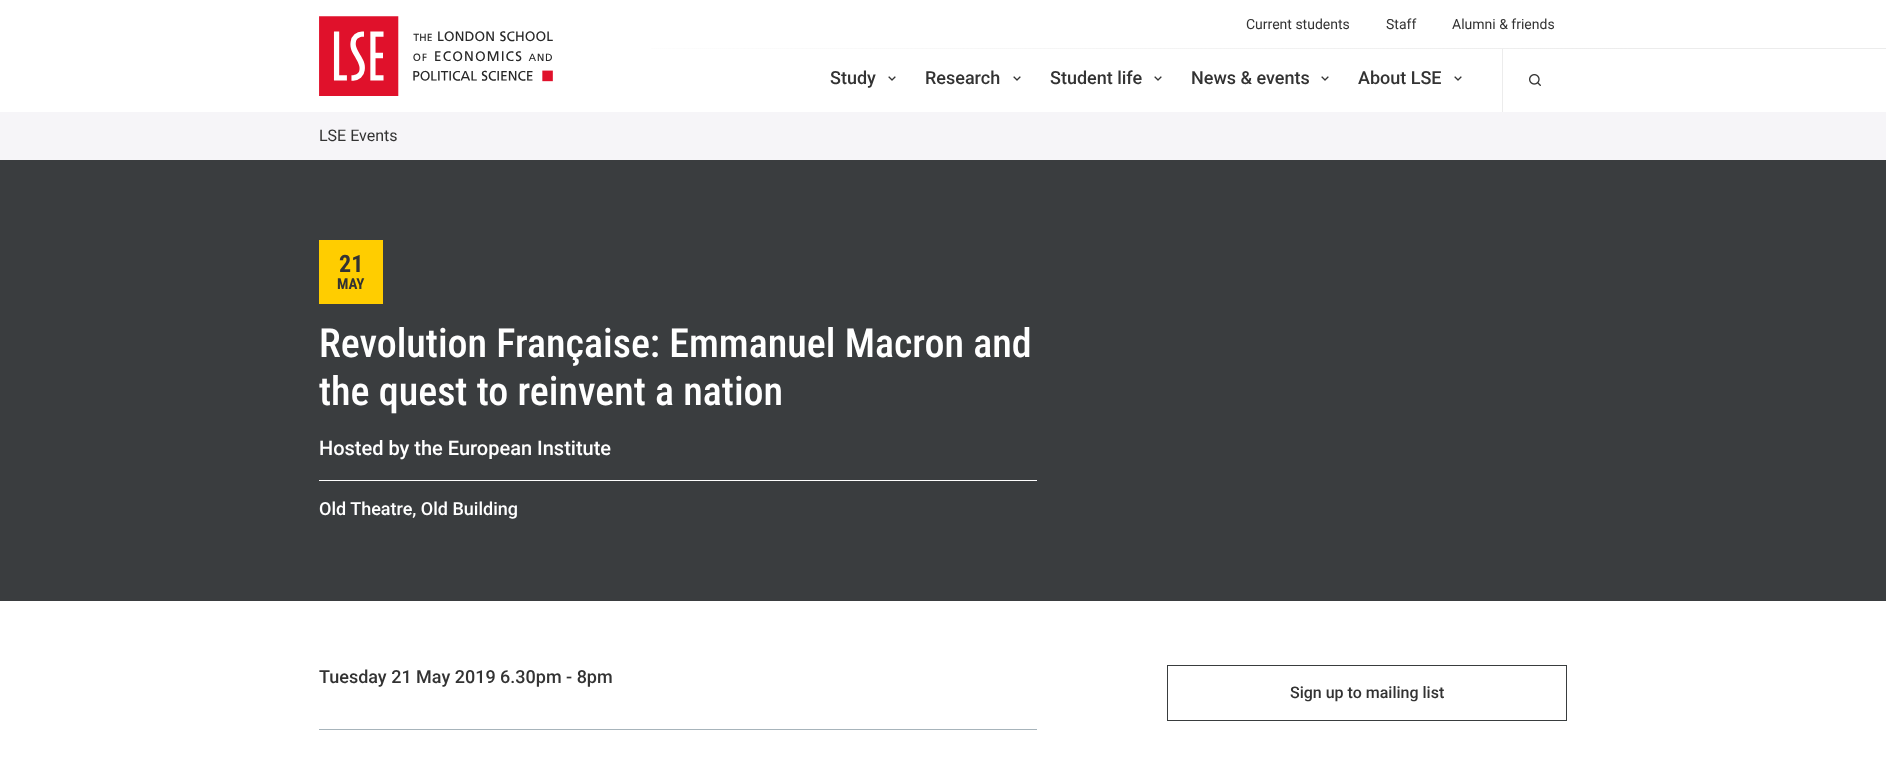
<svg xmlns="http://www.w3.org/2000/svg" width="1886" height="769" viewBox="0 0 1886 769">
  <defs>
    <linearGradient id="g1" gradientUnits="userSpaceOnUse" x1="1223" y1="95" x2="1229" y2="2.1"><stop offset="0" stop-color="#ffffff"/><stop offset="0.78" stop-color="#ececec"/></linearGradient>
  </defs>
  <rect width="100%" height="100%" fill="#ffffff"/>
  <image x="319" y="16" width="234" height="80" href="img1.png"/>
  <text x="1246" y="29" font-family="Roboto" font-size="14" fill="#333333">Current students</text>
  <text x="1386" y="29" font-family="Roboto" font-size="14" fill="#333333">Staff</text>
  <text x="1452" y="29" font-family="Roboto" font-size="14" fill="#333333">Alumni &amp; friends</text>
  <rect x="1502" y="48" width="1" height="64" fill="#ececec"/>
  <rect x="651" y="48" width="1235" height="1" fill="url(#g1)"/>
  <text x="830" y="84" font-family="Roboto" font-size="18" font-weight="500" fill="#333333">Study</text>
  <image x="888" y="76" width="8" height="5" href="img2.png"/>
  <text x="925" y="84" font-family="Roboto" font-size="18" font-weight="500" fill="#333333">Research</text>
  <image x="1013" y="76" width="8" height="5" href="img2.png"/>
  <text x="1050" y="84" font-family="Roboto" font-size="18" font-weight="500" fill="#333333">Student life</text>
  <image x="1154" y="76" width="8" height="5" href="img2.png"/>
  <text x="1191" y="84" font-family="Roboto" font-size="18" font-weight="500" fill="#333333">News &amp; events</text>
  <image x="1321" y="76" width="8" height="5" href="img2.png"/>
  <text x="1358" y="84" font-family="Roboto" font-size="18" font-weight="500" fill="#333333">About LSE</text>
  <image x="1454" y="76" width="8" height="5" href="img2.png"/>
  <image x="1529" y="74" width="12" height="12" href="img3.png"/>
  <rect x="0" y="112" width="1886" height="48" fill="#f6f5f8"/>
  <text x="319" y="141" font-family="Roboto" font-size="16" fill="#333333">LSE Events</text>
  <rect x="0" y="160" width="1886" height="441" fill="#3a3d3f"/>
  <rect x="319" y="240" width="64" height="64" fill="#ffcd00"/>
  <text x="339" y="272" font-family="Roboto Condensed" font-size="24" font-weight="bold" fill="#333333">21</text>
  <text x="337" y="289" font-family="Roboto Condensed" font-size="15" font-weight="bold" fill="#333333">MAY</text>
  <text x="319" y="357" font-family="Roboto Condensed" font-size="40" font-weight="500" fill="#ffffff">Revolution Française: Emmanuel Macron and</text>
  <text x="319" y="405" font-family="Roboto Condensed" font-size="40" font-weight="500" fill="#ffffff">the quest to reinvent a nation</text>
  <text x="319" y="455" font-family="Roboto" font-size="20" font-weight="500" fill="#ffffff">Hosted by the European Institute</text>
  <rect x="319" y="480" width="718" height="1" fill="#ffffff"/>
  <text x="319" y="515" font-family="Roboto" font-size="18" font-weight="500" fill="#ffffff">Old Theatre, Old Building</text>
  <rect x="319" y="729" width="718" height="1" fill="#a7b4bb"/>
  <text x="319" y="683" font-family="Roboto" font-size="18" font-weight="500" fill="#333333">Tuesday 21 May 2019 6.30pm - 8pm</text>
  <rect x="1167.5" y="665.5" width="399" height="55" fill="none" stroke="#393d3e"/>
  <text x="1290" y="698" font-family="Roboto" font-size="16" font-weight="500" fill="#333333">Sign up to mailing list</text>
</svg>
